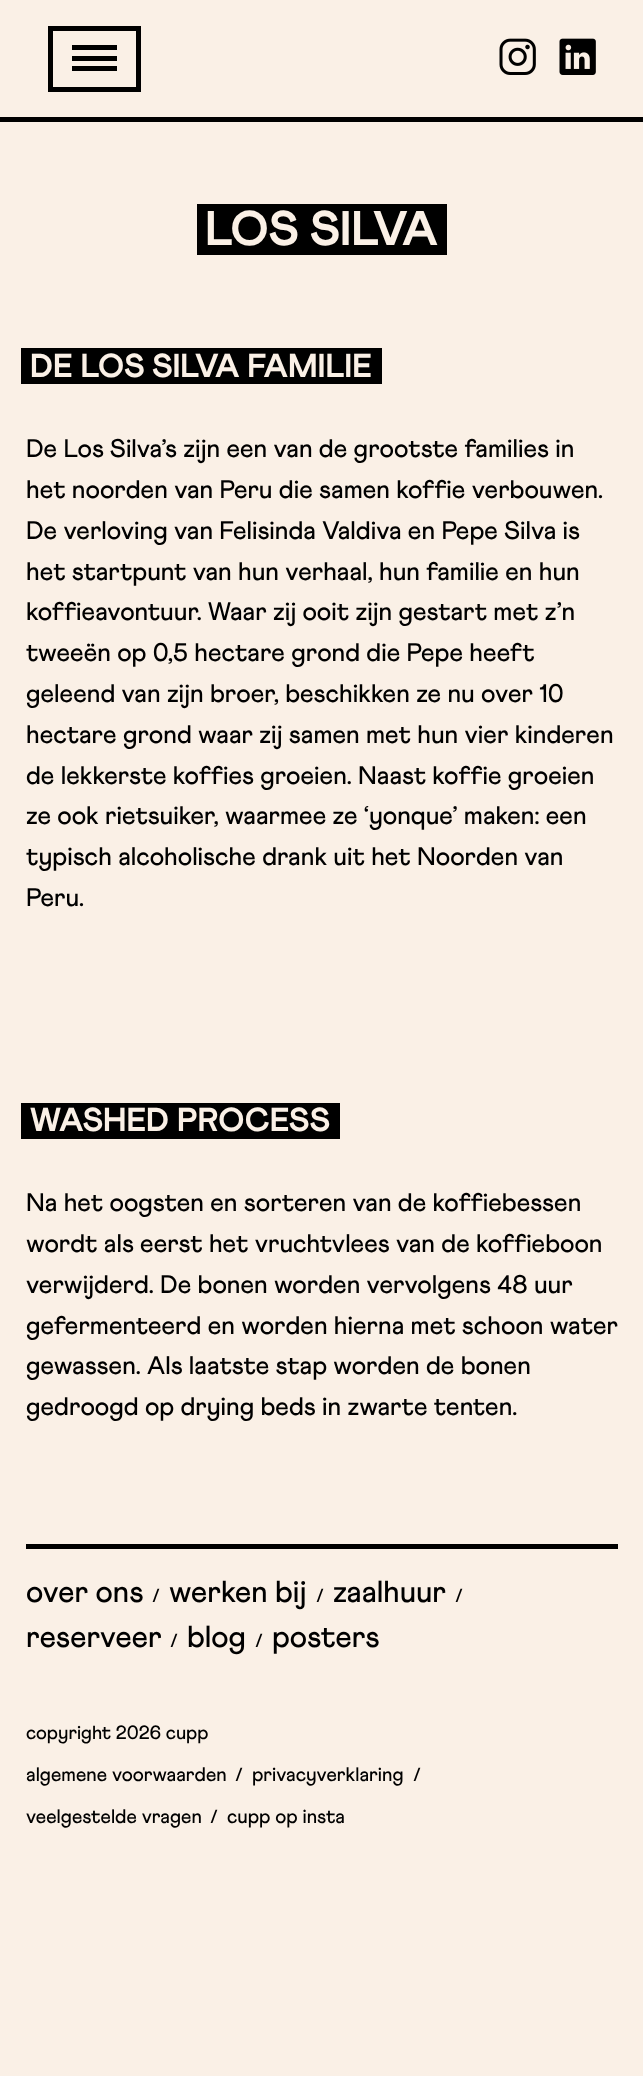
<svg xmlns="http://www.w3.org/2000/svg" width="643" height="2076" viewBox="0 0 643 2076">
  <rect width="100%" height="100%" fill="#faf0e6"/>
  <rect x="0" y="117" width="643" height="5" fill="#000000"/>
  <rect x="50.5" y="28.5" width="88" height="61" fill="none" stroke="#000000" stroke-width="5"/>
  <rect x="72" y="45" width="45" height="5" fill="#000000"/>
  <rect x="72" y="56" width="45" height="5" fill="#000000"/>
  <rect x="72" y="66" width="45" height="5" fill="#000000"/>
  <image x="499" y="38" width="37" height="37" href="img1.png"/>
  <image x="559" y="38" width="37" height="37" href="img2.png"/>
  <rect x="201" y="204" width="246" height="51" fill="#000000"/>
  <text x="205" y="245" font-family="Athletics" font-size="48.5" font-weight="800" fill="#faf0e6">LOS SILVA</text>
  <rect x="197" y="204" width="4" height="51" fill="#000000"/>
  <rect x="26" y="348" width="356" height="36" fill="#000000"/>
  <text x="30" y="377" font-family="Athletics" font-size="33.1" font-weight="800" fill="#faf0e6">DE LOS SILVA FAMILIE</text>
  <rect x="21" y="348" width="5" height="36" fill="#000000"/>
  <text x="26" y="457" font-family="Athletics" font-size="25.5" font-weight="500" fill="#000000">De Los Silva’s zijn een van de grootste families in</text>
  <text x="26" y="498" font-family="Athletics" font-size="25.5" font-weight="500" fill="#000000">het noorden van Peru die samen koffie verbouwen.</text>
  <text x="26" y="539" font-family="Athletics" font-size="25.5" font-weight="500" fill="#000000">De verloving van Felisinda Valdiva en Pepe Silva is</text>
  <text x="26" y="580" font-family="Athletics" font-size="25.5" font-weight="500" fill="#000000">het startpunt van hun verhaal, hun familie en hun</text>
  <text x="26" y="620" font-family="Athletics" font-size="25.5" font-weight="500" fill="#000000">koffieavontuur. Waar zij ooit zijn gestart met z’n</text>
  <text x="26" y="661" font-family="Athletics" font-size="25.5" font-weight="500" fill="#000000">tweeën op 0,5 hectare grond die Pepe heeft</text>
  <text x="26" y="702" font-family="Athletics" font-size="25.5" font-weight="500" fill="#000000">geleend van zijn broer, beschikken ze nu over 10</text>
  <text x="26" y="743" font-family="Athletics" font-size="25.5" font-weight="500" fill="#000000">hectare grond waar zij samen met hun vier kinderen</text>
  <text x="26" y="784" font-family="Athletics" font-size="25.5" font-weight="500" fill="#000000">de lekkerste koffies groeien. Naast koffie groeien</text>
  <text x="26" y="824" font-family="Athletics" font-size="25.5" font-weight="500" fill="#000000">ze ook rietsuiker, waarmee ze ‘yonque’ maken: een</text>
  <text x="26" y="865" font-family="Athletics" font-size="25.5" font-weight="500" fill="#000000">typisch alcoholische drank uit het Noorden van</text>
  <text x="26" y="906" font-family="Athletics" font-size="25.5" font-weight="500" fill="#000000">Peru.</text>
  <path d="M21 1103V1139H326V1138H26V1103Z" fill="#000000"/>
  <path d="M30 1138V1139H335V1103H330V1138Z" fill="#000000"/>
  <rect x="26" y="1103" width="304" height="35" fill="#000000"/>
  <text x="30" y="1131" font-family="Athletics" font-size="33.1" font-weight="800" fill="#faf0e6">WASHED PROCESS</text>
  <rect x="335" y="1103" width="5" height="36" fill="#000000"/>
  <text x="26" y="1211" font-family="Athletics" font-size="25.5" font-weight="500" fill="#000000">Na het oogsten en sorteren van de koffiebessen</text>
  <text x="26" y="1252" font-family="Athletics" font-size="25.5" font-weight="500" fill="#000000">wordt als eerst het vruchtvlees van de koffieboon</text>
  <text x="26" y="1293" font-family="Athletics" font-size="25.5" font-weight="500" fill="#000000">verwijderd. De bonen worden vervolgens 48 uur</text>
  <text x="26" y="1334" font-family="Athletics" font-size="25.5" font-weight="500" fill="#000000">gefermenteerd en worden hierna met schoon water</text>
  <text x="26" y="1374" font-family="Athletics" font-size="25.5" font-weight="500" fill="#000000">gewassen. Als laatste stap worden de bonen</text>
  <text x="26" y="1415" font-family="Athletics" font-size="25.5" font-weight="500" fill="#000000">gedroogd op drying beds in zwarte tenten.</text>
  <rect x="26" y="1544" width="592" height="5" fill="#000000"/>
  <text x="26" y="1602" font-family="Athletics" font-size="30.5" font-weight="500" fill="#000000">over ons</text>
  <text x="152" y="1602" font-family="Athletics" font-size="19.1" font-weight="500" fill="#000000">/</text>
  <text x="169" y="1602" font-family="Athletics" font-size="30.5" font-weight="500" fill="#000000">werken bij</text>
  <text x="316" y="1602" font-family="Athletics" font-size="19.1" font-weight="500" fill="#000000">/</text>
  <text x="333" y="1602" font-family="Athletics" font-size="30.5" font-weight="500" fill="#000000">zaalhuur</text>
  <text x="455" y="1602" font-family="Athletics" font-size="19.1" font-weight="500" fill="#000000">/</text>
  <text x="26" y="1647" font-family="Athletics" font-size="30.5" font-weight="500" fill="#000000">reserveer</text>
  <text x="170" y="1647" font-family="Athletics" font-size="19.1" font-weight="500" fill="#000000">/</text>
  <text x="187" y="1647" font-family="Athletics" font-size="30.5" font-weight="500" fill="#000000">blog</text>
  <text x="255" y="1647" font-family="Athletics" font-size="19.1" font-weight="500" fill="#000000">/</text>
  <text x="272" y="1647" font-family="Athletics" font-size="30.5" font-weight="500" fill="#000000">posters</text>
  <text x="26" y="1739" font-family="Athletics" font-size="19.1" font-weight="500" fill="#000000">copyright 2026 cupp</text>
  <text x="26" y="1781" font-family="Athletics" font-size="19.5" font-weight="500" fill="#000000">algemene voorwaarden</text>
  <text x="235" y="1781" font-family="Athletics" font-size="19.1" font-weight="500" fill="#000000">/</text>
  <text x="252" y="1781" font-family="Athletics" font-size="19.5" font-weight="500" fill="#000000">privacyverklaring</text>
  <text x="413" y="1781" font-family="Athletics" font-size="19.1" font-weight="500" fill="#000000">/</text>
  <text x="26" y="1823" font-family="Athletics" font-size="19.5" font-weight="500" fill="#000000">veelgestelde vragen</text>
  <text x="210" y="1823" font-family="Athletics" font-size="19.1" font-weight="500" fill="#000000">/</text>
  <text x="227" y="1823" font-family="Athletics" font-size="19.5" font-weight="500" fill="#000000">cupp op insta</text>
</svg>
